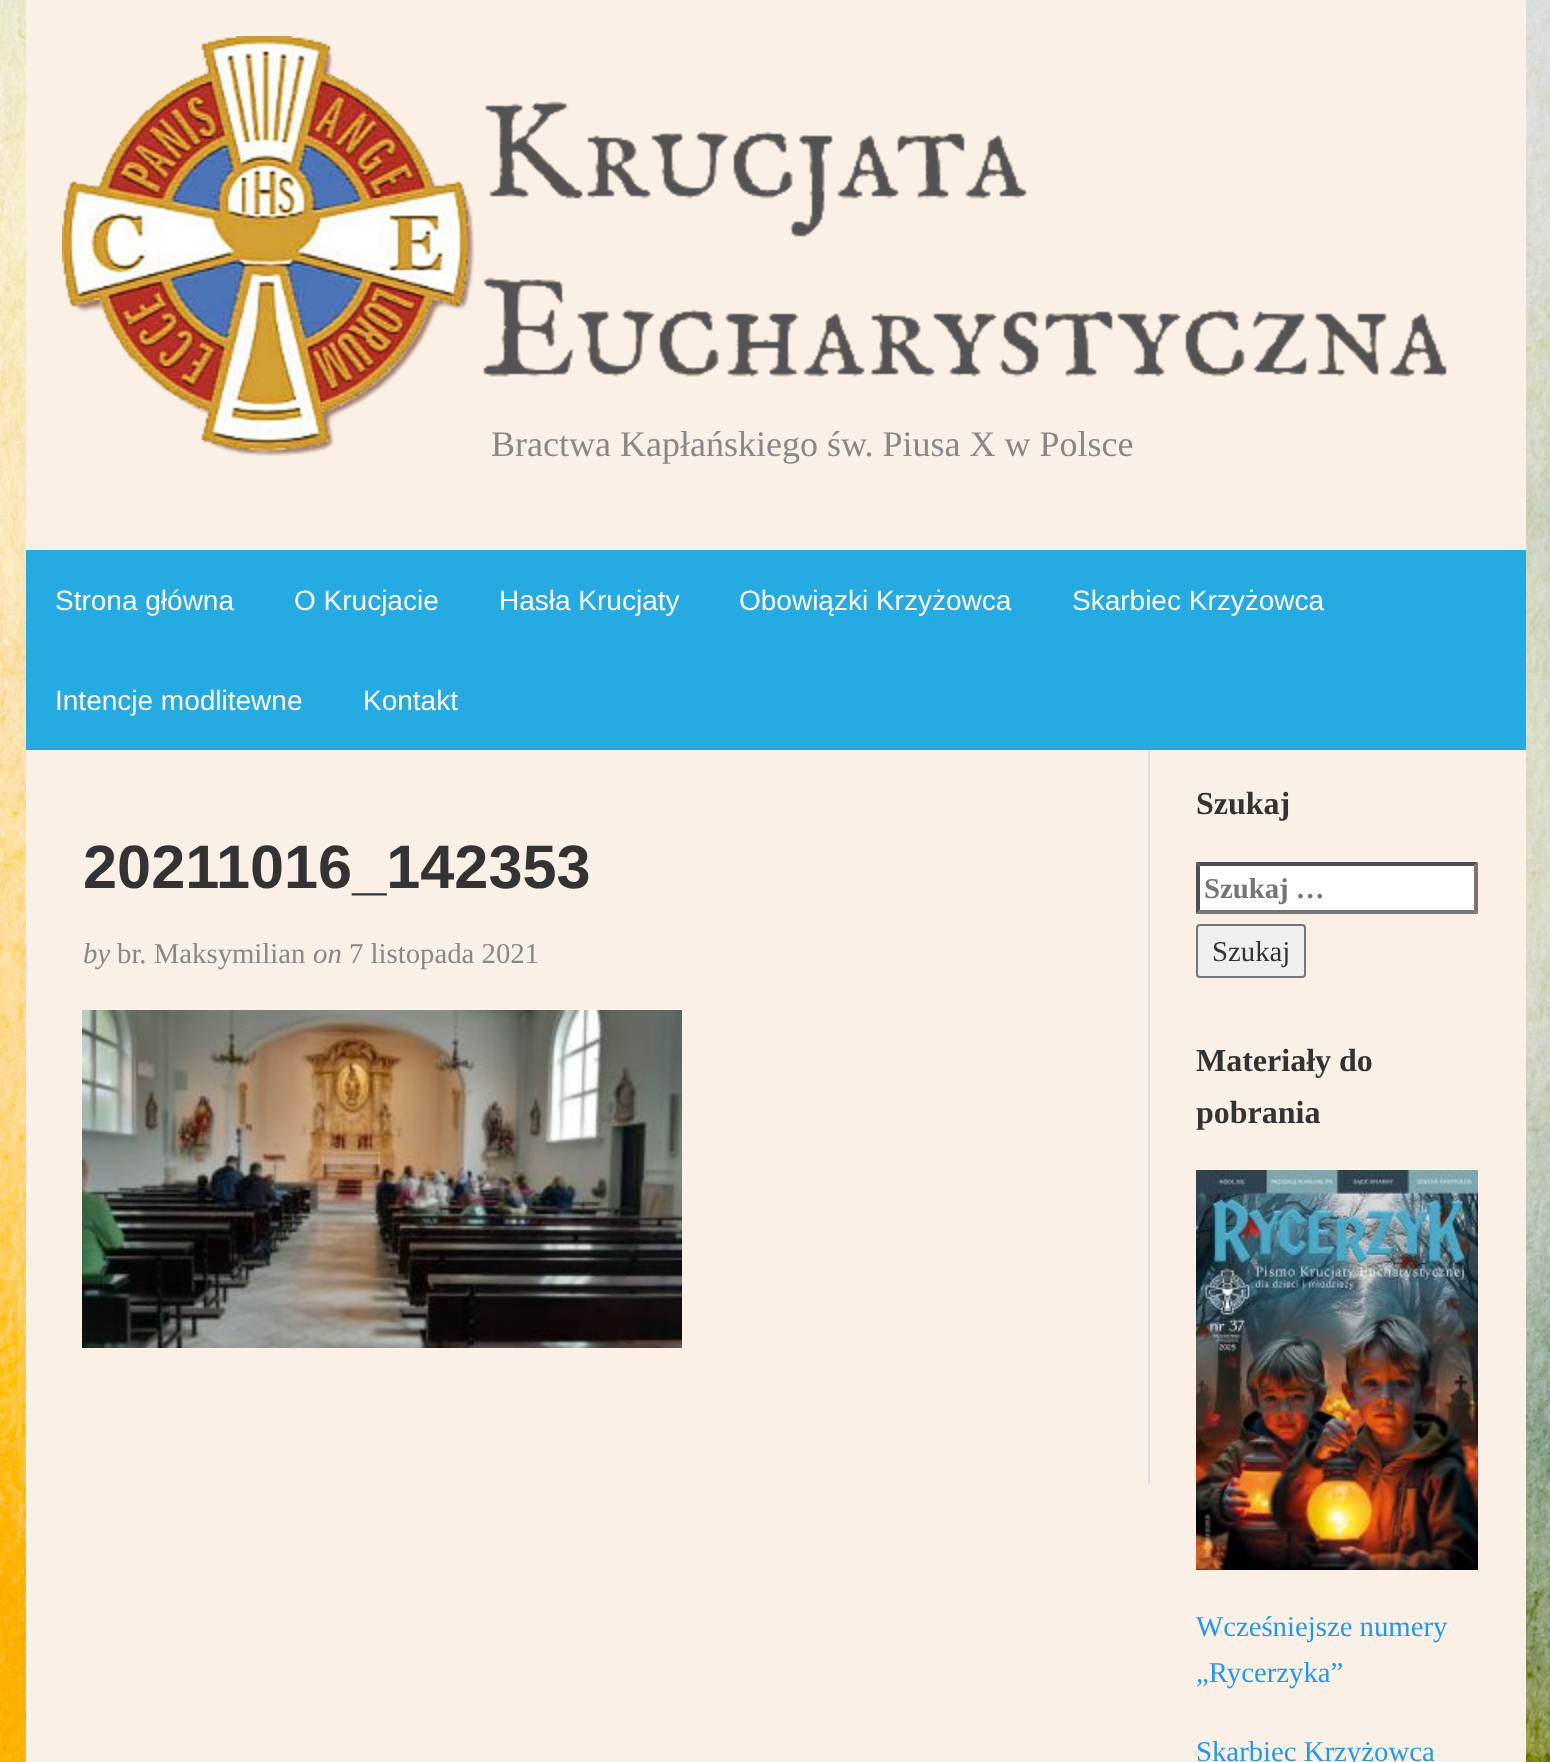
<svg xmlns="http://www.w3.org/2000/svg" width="1550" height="1762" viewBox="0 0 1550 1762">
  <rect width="100%" height="100%" fill="#ffffff"/>
  <image x="0" y="0" width="1550" height="1762" href="img1.png"/>
  <rect x="26" y="0" width="1500" height="1762" fill="#faf0e6"/>
  <image x="62" y="36" width="1385" height="420" href="img2.png"/>
  <text x="491" y="456" font-family="Liberation Serif" font-size="36" fill="#888888">Bractwa Kapłańskiego św. Piusa X w Polsce</text>
  <rect x="26" y="550" width="1500" height="200" fill="#25aae2"/>
  <text x="55" y="610" font-family="Liberation Sans" font-size="28" fill="#ffffff">Strona główna</text>
  <text x="294" y="610" font-family="Liberation Sans" font-size="28" fill="#ffffff">O Krucjacie</text>
  <text x="499" y="610" font-family="Liberation Sans" font-size="28" fill="#ffffff">Hasła Krucjaty</text>
  <text x="739" y="610" font-family="Liberation Sans" font-size="28" fill="#ffffff">Obowiązki Krzyżowca</text>
  <text x="1072" y="610" font-family="Liberation Sans" font-size="28" fill="#ffffff">Skarbiec Krzyżowca</text>
  <text x="55" y="710" font-family="Liberation Sans" font-size="28" fill="#ffffff">Intencje modlitewne</text>
  <text x="363" y="710" font-family="Liberation Sans" font-size="28" fill="#ffffff">Kontakt</text>
  <rect x="1148" y="750" width="2" height="734" fill="#dddddd"/>
  <text x="83" y="888" font-family="Liberation Sans" font-size="61.25" font-weight="bold" fill="#333333">20211016_142353</text>
  <text x="83" y="963" font-family="Liberation Serif" font-size="28.75" font-style="italic" fill="#888888">by</text>
  <text x="117" y="963" font-family="Liberation Serif" font-size="28.75" fill="#888888">br. Maksymilian</text>
  <text x="313" y="963" font-family="Liberation Serif" font-size="28.75" font-style="italic" fill="#888888">on</text>
  <text x="349" y="963" font-family="Liberation Serif" font-size="28.75" fill="#888888">7 listopada 2021</text>
  <image x="82" y="1010" width="600" height="338" href="img3.png"/>
  <text x="1196" y="814" font-family="Liberation Serif" font-size="32" font-weight="bold" fill="#333333">Szukaj</text>
  <rect x="1196" y="862" width="282" height="52" fill="#ffffff"/>
  <path d="M1196 862H1478L1474 866H1200Z" fill="#4f4f4f"/>
  <path d="M1478 862V914L1474 910V866Z" fill="#767676"/>
  <path d="M1478 914H1196L1200 910H1474Z" fill="#767676"/>
  <path d="M1196 914V862L1200 866V910Z" fill="#4f4f4f"/>
  <text x="1204" y="898" font-family="Liberation Serif" font-size="28.75" font-weight="bold" fill="#757575">Szukaj …</text>
  <rect x="1197" y="925" width="108" height="52" rx="3" fill="#efefef" stroke="#767676" stroke-width="2"/>
  <text x="1212" y="961" font-family="Liberation Serif" font-size="28.75" fill="#333333">Szukaj</text>
  <text x="1196" y="1071" font-family="Liberation Serif" font-size="32" font-weight="bold" fill="#333333">Materiały do</text>
  <text x="1196" y="1123" font-family="Liberation Serif" font-size="32" font-weight="bold" fill="#333333">pobrania</text>
  <image x="1196" y="1170" width="282" height="400" href="img4.png"/>
  <text x="1196" y="1636" font-family="Liberation Serif" font-size="28.75" fill="#2198f4">Wcześniejsze numery</text>
  <text x="1196" y="1682" font-family="Liberation Serif" font-size="28.75" fill="#2198f4">„Rycerzyka”</text>
  <text x="1196" y="1761" font-family="Liberation Serif" font-size="28.75" fill="#2198f4">Skarbiec Krzyżowca</text>
</svg>
